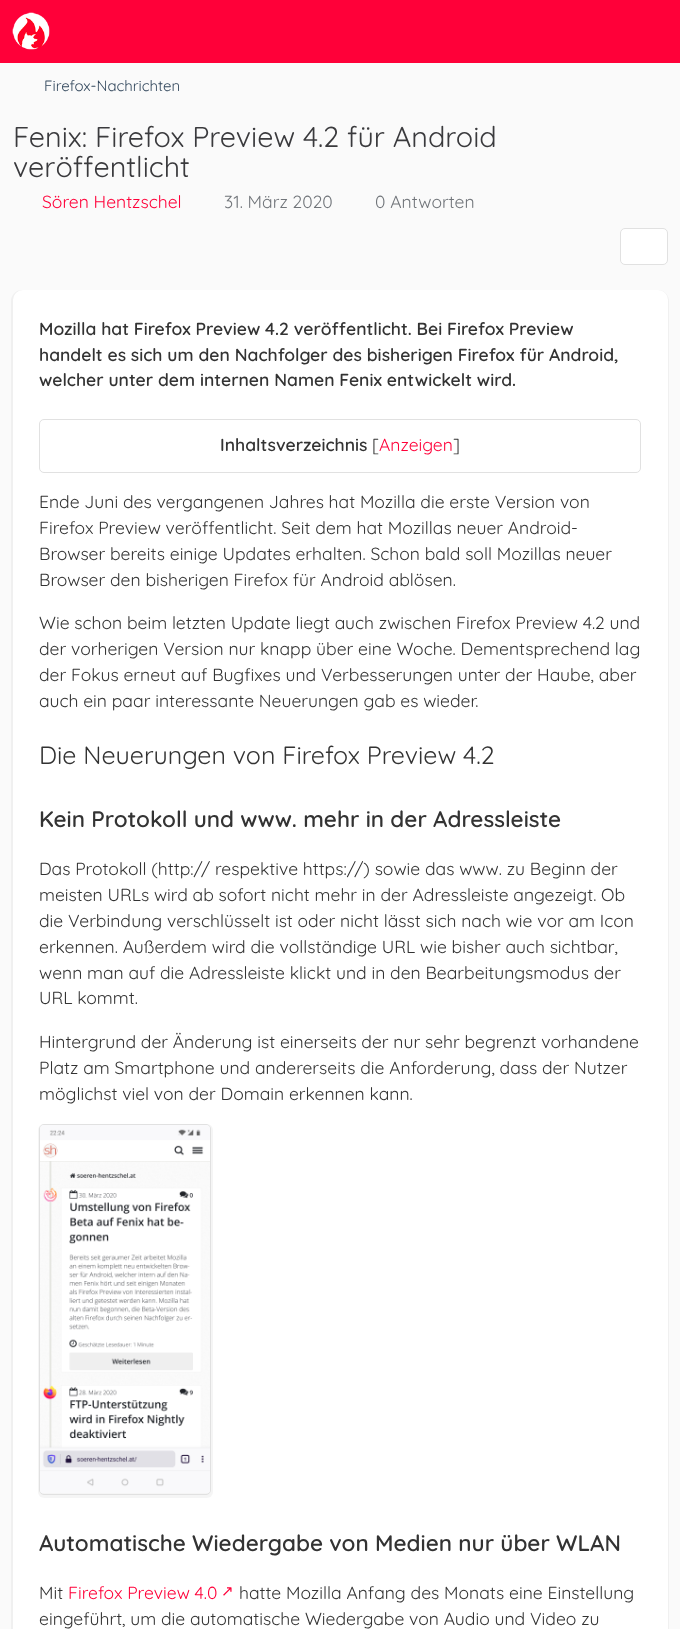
<svg xmlns="http://www.w3.org/2000/svg" width="680" height="1629" viewBox="0 0 680 1629">
  <defs>
    <filter id="blur1" x="-50%" y="-200%" width="200%" height="500%"><feGaussianBlur stdDeviation="0.5"/></filter>
  </defs>
  <rect width="100%" height="100%" fill="#fafafa"/>
  <rect x="0" y="0" width="680" height="63" fill="#ff0039"/>
  <image x="12" y="12" width="38" height="38" href="img1.png"/>
  <text x="44" y="91" font-family="Quicksand" font-size="15" font-weight="300" fill="#34495e">Firefox-Nachrichten</text>
  <text x="13" y="147" font-family="Quicksand" font-size="28.75" font-weight="300" fill="#3a3a3d">Fenix: Firefox Preview 4.2 für Android</text>
  <text x="13" y="177" font-family="Quicksand" font-size="28.75" font-weight="300" fill="#3a3a3d">veröffentlicht</text>
  <text x="42" y="208" font-family="Quicksand" font-size="17.5" font-weight="300" fill="#ff0039">Sören Hentzschel</text>
  <text x="224" y="208" font-family="Quicksand" font-size="17.5" font-weight="300" fill="#71757a">31. März 2020</text>
  <text x="375" y="208" font-family="Quicksand" font-size="17.5" font-weight="300" fill="#71757a">0 Antworten</text>
  <rect x="620.5" y="228.5" width="47" height="36" rx="4.5" fill="#ffffff" stroke="#e1e1e1"/>
  <rect x="11" y="290" width="658" height="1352" rx="11" fill="#000000" fill-opacity="0.04" filter="url(#blur1)"/>
  <rect x="13" y="290" width="655" height="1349" rx="10" fill="#ffffff"/>
  <text x="39" y="335" font-family="Quicksand" font-size="17.5" font-weight="600" fill="#333333">Mozilla hat Firefox Preview 4.2 veröffentlicht. Bei Firefox Preview</text>
  <text x="39" y="361" font-family="Quicksand" font-size="17.5" font-weight="600" fill="#333333">handelt es sich um den Nachfolger des bisherigen Firefox für Android,</text>
  <text x="39" y="386" font-family="Quicksand" font-size="17.5" font-weight="600" fill="#333333">welcher unter dem internen Namen Fenix entwickelt wird.</text>
  <rect x="39.5" y="419.5" width="601" height="53" rx="4.5" fill="none" stroke="#e1e1e1"/>
  <text x="220" y="451" font-family="Quicksand" font-size="17.5" font-weight="600" fill="#333333">Inhaltsverzeichnis</text>
  <text x="372" y="451" font-family="Quicksand" font-size="17.5" font-weight="300" fill="#333333">[</text>
  <text x="379" y="451" font-family="Quicksand" font-size="17.5" font-weight="300" fill="#ff0039">Anzeigen</text>
  <text x="453" y="451" font-family="Quicksand" font-size="17.5" font-weight="300" fill="#333333">]</text>
  <text x="39" y="508" font-family="Quicksand" font-size="17.5" font-weight="300" fill="#333333">Ende Juni des vergangenen Jahres hat Mozilla die erste Version von</text>
  <text x="39" y="534" font-family="Quicksand" font-size="17.5" font-weight="300" fill="#333333">Firefox Preview veröffentlicht. Seit dem hat Mozillas neuer Android-</text>
  <text x="39" y="560" font-family="Quicksand" font-size="17.5" font-weight="300" fill="#333333">Browser bereits einige Updates erhalten. Schon bald soll Mozillas neuer</text>
  <text x="39" y="586" font-family="Quicksand" font-size="17.5" font-weight="300" fill="#333333">Browser den bisherigen Firefox für Android ablösen.</text>
  <text x="39" y="629" font-family="Quicksand" font-size="17.5" font-weight="300" fill="#333333">Wie schon beim letzten Update liegt auch zwischen Firefox Preview 4.2 und</text>
  <text x="39" y="655" font-family="Quicksand" font-size="17.5" font-weight="300" fill="#333333">der vorherigen Version nur knapp über eine Woche. Dementsprechend lag</text>
  <text x="39" y="681" font-family="Quicksand" font-size="17.5" font-weight="300" fill="#333333">der Fokus erneut auf Bugfixes und Verbesserungen unter der Haube, aber</text>
  <text x="39" y="707" font-family="Quicksand" font-size="17.5" font-weight="300" fill="#333333">auch ein paar interessante Neuerungen gab es wieder.</text>
  <text x="39" y="764" font-family="Quicksand" font-size="25" font-weight="300" fill="#333333">Die Neuerungen von Firefox Preview 4.2</text>
  <text x="39" y="827" font-family="Quicksand" font-size="22.5" font-weight="600" fill="#333333">Kein Protokoll und www. mehr in der Adressleiste</text>
  <text x="39" y="875" font-family="Quicksand" font-size="17.5" font-weight="300" fill="#333333">Das Protokoll (http:// respektive https://) sowie das www. zu Beginn der</text>
  <text x="39" y="901" font-family="Quicksand" font-size="17.5" font-weight="300" fill="#333333">meisten URLs wird ab sofort nicht mehr in der Adressleiste angezeigt. Ob</text>
  <text x="39" y="927" font-family="Quicksand" font-size="17.5" font-weight="300" fill="#333333">die Verbindung verschlüsselt ist oder nicht lässt sich nach wie vor am Icon</text>
  <text x="39" y="953" font-family="Quicksand" font-size="17.5" font-weight="300" fill="#333333">erkennen. Außerdem wird die vollständige URL wie bisher auch sichtbar,</text>
  <text x="39" y="979" font-family="Quicksand" font-size="17.5" font-weight="300" fill="#333333">wenn man auf die Adressleiste klickt und in den Bearbeitungsmodus der</text>
  <text x="39" y="1004" font-family="Quicksand" font-size="17.5" font-weight="300" fill="#333333">URL kommt.</text>
  <text x="39" y="1048" font-family="Quicksand" font-size="17.5" font-weight="300" fill="#333333">Hintergrund der Änderung ist einerseits der nur sehr begrenzt vorhandene</text>
  <text x="39" y="1074" font-family="Quicksand" font-size="17.5" font-weight="300" fill="#333333">Platz am Smartphone und andererseits die Anforderung, dass der Nutzer</text>
  <text x="39" y="1100" font-family="Quicksand" font-size="17.5" font-weight="300" fill="#333333">möglichst viel von der Domain erkennen kann.</text>
  <rect x="38" y="1124" width="175" height="374" rx="6" fill="#000000" fill-opacity="0.04" filter="url(#blur1)"/>
  <rect x="39.5" y="1124.5" width="171" height="370" rx="4.5" fill="none" stroke="#e1e1e1"/>
  <image x="40" y="1125" width="170" height="368" href="img2.png"/>
  <text x="39" y="1551" font-family="Quicksand" font-size="22.5" font-weight="600" fill="#333333">Automatische Wiedergabe von Medien nur über WLAN</text>
  <text x="39" y="1599" font-family="Quicksand" font-size="17.5" font-weight="300" fill="#333333">Mit</text>
  <text x="68" y="1599" font-family="Quicksand" font-size="17.5" font-weight="300" fill="#ff0039">Firefox Preview 4.0</text>
  <text x="221" y="1596" font-family="DejaVu Sans" font-size="15" fill="#ff0039">↗</text>
  <text x="239" y="1599" font-family="Quicksand" font-size="17.5" font-weight="300" fill="#333333">hatte Mozilla Anfang des Monats eine Einstellung</text>
  <text x="39" y="1625" font-family="Quicksand" font-size="17.5" font-weight="300" fill="#333333">eingeführt, um die automatische Wiedergabe von Audio und Video zu</text>
</svg>
